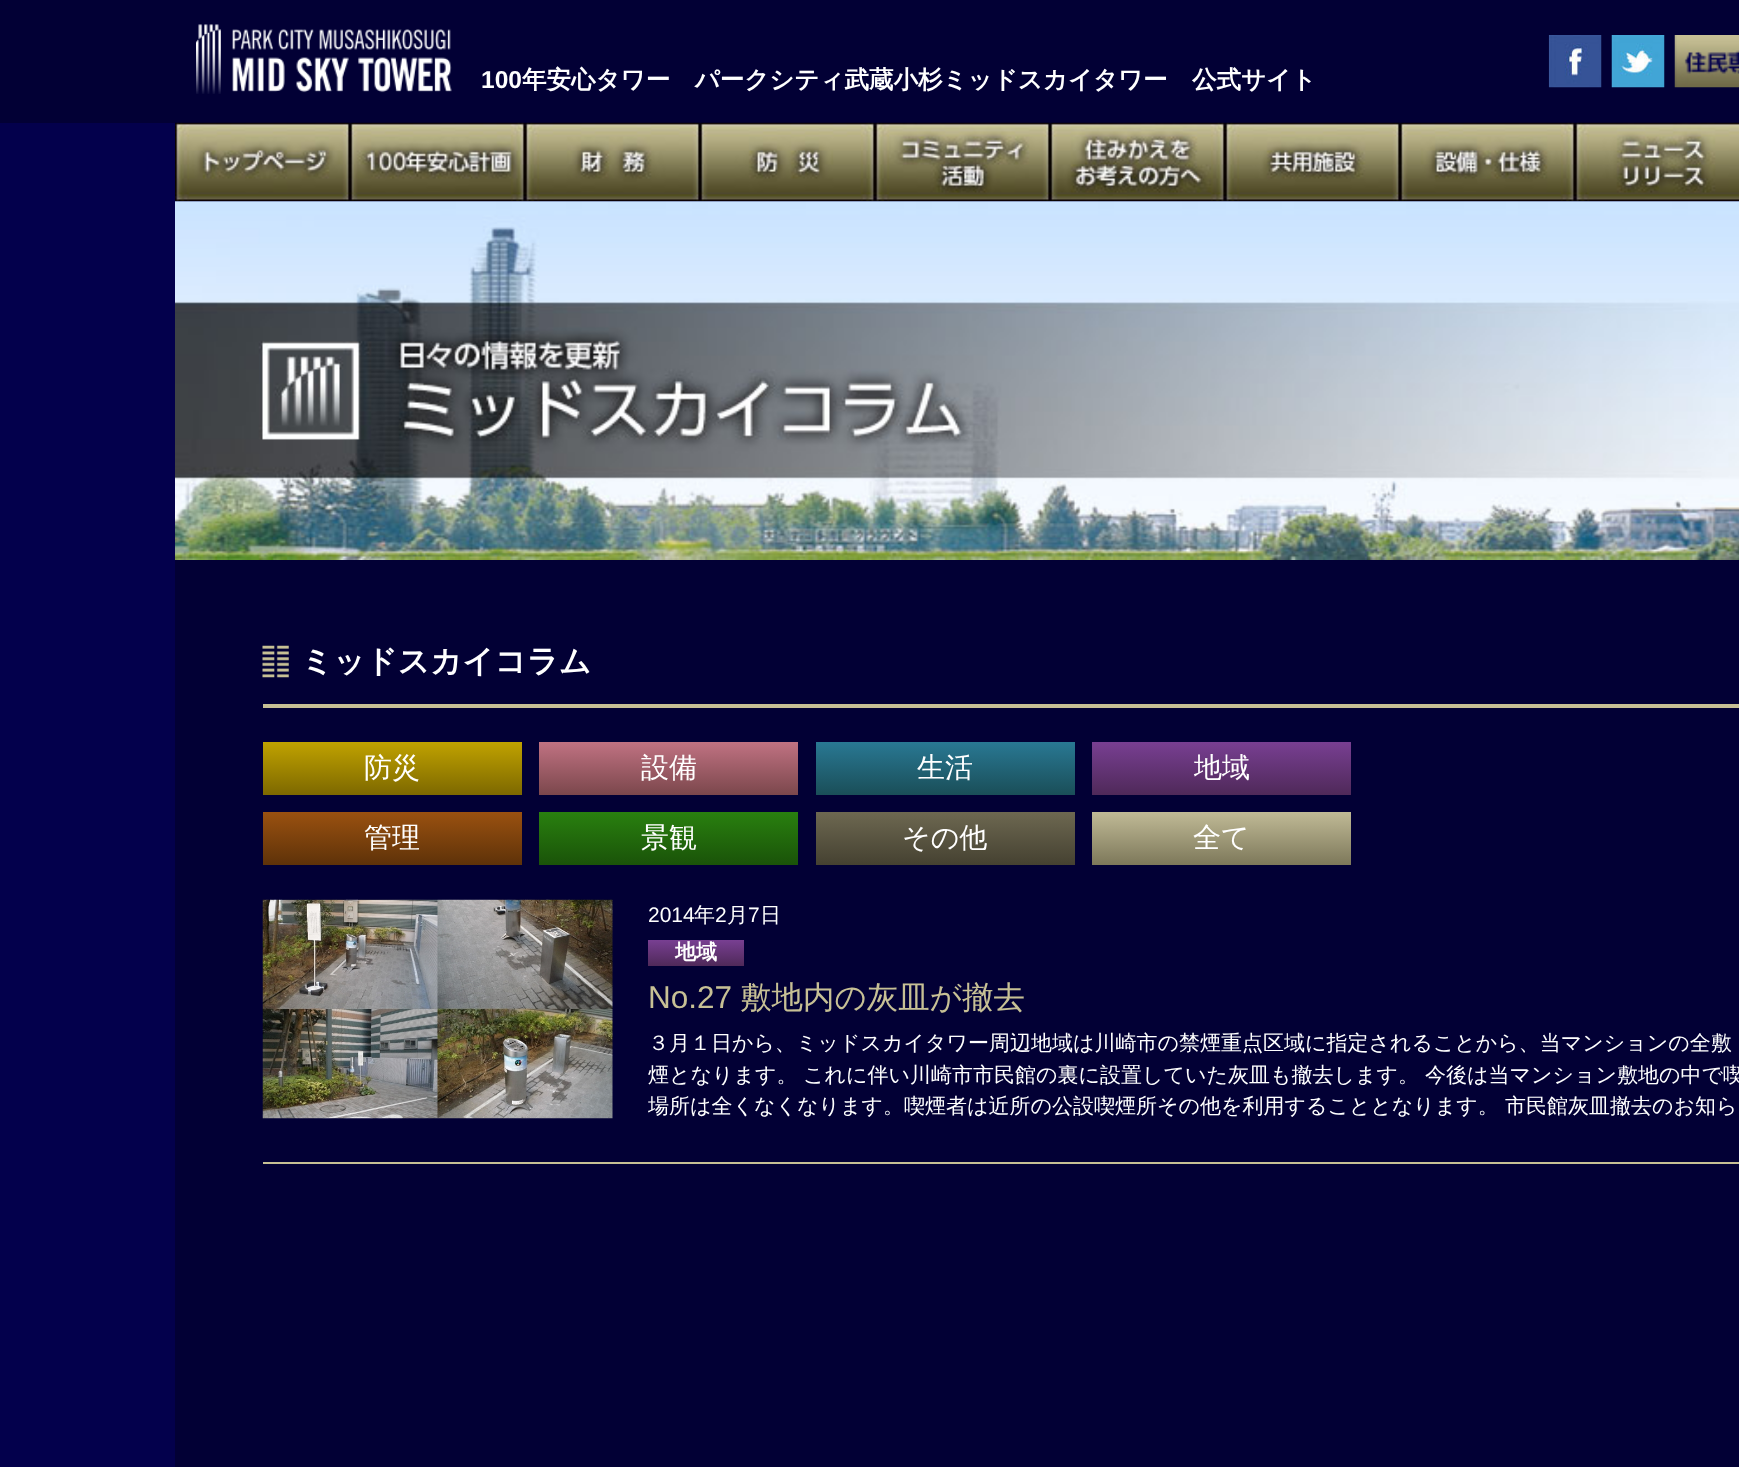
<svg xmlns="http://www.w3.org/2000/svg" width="1739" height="1467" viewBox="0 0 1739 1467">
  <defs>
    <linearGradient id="g1" gradientUnits="userSpaceOnUse" x1="392" y1="742" x2="392" y2="795"><stop offset="0" stop-color="#c0a200"/><stop offset="1" stop-color="#7d6800"/></linearGradient>
    <linearGradient id="g2" gradientUnits="userSpaceOnUse" x1="669" y1="742" x2="669" y2="795"><stop offset="0" stop-color="#c07282"/><stop offset="1" stop-color="#7b474c"/></linearGradient>
    <linearGradient id="g3" gradientUnits="userSpaceOnUse" x1="945" y1="742" x2="945" y2="795"><stop offset="0" stop-color="#297893"/><stop offset="1" stop-color="#1a4e58"/></linearGradient>
    <linearGradient id="g4" gradientUnits="userSpaceOnUse" x1="1222" y1="742" x2="1222" y2="795"><stop offset="0" stop-color="#783f92"/><stop offset="1" stop-color="#4f2959"/></linearGradient>
    <linearGradient id="g5" gradientUnits="userSpaceOnUse" x1="392" y1="812" x2="392" y2="865"><stop offset="0" stop-color="#9a5110"/><stop offset="1" stop-color="#5e3209"/></linearGradient>
    <linearGradient id="g6" gradientUnits="userSpaceOnUse" x1="669" y1="812" x2="669" y2="865"><stop offset="0" stop-color="#29800f"/><stop offset="1" stop-color="#1a5309"/></linearGradient>
    <linearGradient id="g7" gradientUnits="userSpaceOnUse" x1="945" y1="812" x2="945" y2="865"><stop offset="0" stop-color="#6d6851"/><stop offset="1" stop-color="#454131"/></linearGradient>
    <linearGradient id="g8" gradientUnits="userSpaceOnUse" x1="1222" y1="812" x2="1222" y2="865"><stop offset="0" stop-color="#c0ba96"/><stop offset="1" stop-color="#7d785a"/></linearGradient>
    <linearGradient id="g9" gradientUnits="userSpaceOnUse" x1="696" y1="940" x2="696" y2="966"><stop offset="0" stop-color="#783f92"/><stop offset="1" stop-color="#4f2959"/></linearGradient>
    <clipPath id="clip1"><rect x="648" y="1027" width="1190" height="95"/></clipPath>
  </defs>
  <rect width="100%" height="100%" fill="#03004c"/>
  <rect x="0" y="0" width="1739" height="123" fill="#020035"/>
  <image x="196" y="24" width="256" height="70" href="img1.png"/>
  <text x="481" y="88" font-family="Liberation Sans" font-size="24.5" font-weight="bold" fill="#ffffff">100</text>
  <text x="522" y="88" font-family="WenQuanYi Zen Hei" font-size="24.5" font-weight="bold" fill="#ffffff">年安心タワー　パークシティ武蔵小杉ミッドスカイタワー　公式サイト</text>
  <image x="1548" y="35" width="54" height="53" href="img2.png"/>
  <image x="1611" y="35" width="54" height="53" href="img3.png"/>
  <image x="1674" y="35" width="65" height="53" href="img4.png"/>
  <image x="175" y="201" width="1564" height="359" href="img14.png"/>
  <image x="175" y="122" width="175" height="80" href="img5.png"/>
  <image x="350" y="122" width="175" height="80" href="img6.png"/>
  <image x="525" y="122" width="175" height="80" href="img7.png"/>
  <image x="700" y="122" width="175" height="80" href="img8.png"/>
  <image x="875" y="122" width="175" height="80" href="img9.png"/>
  <image x="1050" y="122" width="175" height="80" href="img10.png"/>
  <image x="1225" y="122" width="175" height="80" href="img11.png"/>
  <image x="1400" y="122" width="175" height="80" href="img12.png"/>
  <image x="1575" y="122" width="164" height="80" href="img13.png"/>
  <rect x="175" y="560" width="1564" height="907" fill="#020035"/>
  <rect x="263" y="704" width="1476" height="4" fill="#c7c095"/>
  <image x="262" y="645" width="27" height="33" href="img15.png"/>
  <text x="301" y="672" font-family="WenQuanYi Zen Hei" font-size="31.5" font-weight="bold" fill="#ffffff">ミッドスカイコラム</text>
  <rect x="263" y="742" width="259" height="53" fill="url(#g1)"/>
  <text x="364" y="777" font-family="WenQuanYi Zen Hei" font-size="28" font-weight="500" fill="#ffffff">防災</text>
  <rect x="539" y="742" width="259" height="53" fill="url(#g2)"/>
  <text x="641" y="777" font-family="WenQuanYi Zen Hei" font-size="28" font-weight="500" fill="#ffffff">設備</text>
  <rect x="816" y="742" width="259" height="53" fill="url(#g3)"/>
  <text x="917" y="777" font-family="WenQuanYi Zen Hei" font-size="28" font-weight="500" fill="#ffffff">生活</text>
  <rect x="1092" y="742" width="259" height="53" fill="url(#g4)"/>
  <text x="1194" y="777" font-family="WenQuanYi Zen Hei" font-size="28" font-weight="500" fill="#ffffff">地域</text>
  <rect x="263" y="812" width="259" height="53" fill="url(#g5)"/>
  <text x="364" y="847" font-family="WenQuanYi Zen Hei" font-size="28" font-weight="500" fill="#ffffff">管理</text>
  <rect x="539" y="812" width="259" height="53" fill="url(#g6)"/>
  <text x="641" y="847" font-family="WenQuanYi Zen Hei" font-size="28" font-weight="500" fill="#ffffff">景観</text>
  <rect x="816" y="812" width="259" height="53" fill="url(#g7)"/>
  <text x="902" y="847" font-family="WenQuanYi Zen Hei" font-size="28" font-weight="500" fill="#ffffff">その他</text>
  <rect x="1092" y="812" width="259" height="53" fill="url(#g8)"/>
  <text x="1193" y="847" font-family="WenQuanYi Zen Hei" font-size="28" font-weight="500" fill="#ffffff">全て</text>
  <rect x="263" y="1162" width="1476" height="2" fill="#c7c095"/>
  <image x="262" y="899" width="351" height="220" href="img16.png"/>
  <text x="648" y="922" font-family="Liberation Sans" font-size="21" fill="#ffffff">2014</text>
  <text x="694" y="922" font-family="WenQuanYi Zen Hei" font-size="21" font-weight="500" fill="#ffffff">年</text>
  <text x="715" y="922" font-family="Liberation Sans" font-size="21" fill="#ffffff">2</text>
  <text x="727" y="922" font-family="WenQuanYi Zen Hei" font-size="21" font-weight="500" fill="#ffffff">月</text>
  <text x="748" y="922" font-family="Liberation Sans" font-size="21" fill="#ffffff">7</text>
  <text x="760" y="922" font-family="WenQuanYi Zen Hei" font-size="21" font-weight="500" fill="#ffffff">日</text>
  <rect x="648" y="940" width="96" height="26" fill="url(#g9)"/>
  <text x="675" y="959" font-family="WenQuanYi Zen Hei" font-size="21" font-weight="bold" fill="#ffffff">地域</text>
  <text x="648" y="1008" font-family="Liberation Sans" font-size="31.5" fill="#c7c095">No.27</text>
  <text x="740" y="1008" font-family="WenQuanYi Zen Hei" font-size="31.5" font-weight="500" fill="#c7c095">敷地内の灰皿が撤去</text>
  <text x="648" y="1050" font-family="WenQuanYi Zen Hei" font-size="21" font-weight="500" fill="#ffffff">３月１日から、ミッドスカイタワー周辺地域は川崎市の禁煙重点区域に指定されることから、当マンションの全敷</text>
  <text x="648" y="1082" font-family="WenQuanYi Zen Hei" font-size="21" font-weight="500" fill="#ffffff">煙となります。</text>
  <text x="803" y="1082" font-family="WenQuanYi Zen Hei" font-size="21" font-weight="500" fill="#ffffff">これに伴い川崎市市民館の裏に設置していた灰皿も撤去します。</text>
  <text x="1425" y="1082" font-family="WenQuanYi Zen Hei" font-size="21" font-weight="500" fill="#ffffff">今後は当マンション敷地の中で喫</text>
  <g clip-path="url(#clip1)">
    <text x="648" y="1113" font-family="WenQuanYi Zen Hei" font-size="21" font-weight="500" fill="#ffffff">場所は全くなくなります。喫煙者は近所の公設喫煙所その他を利用することとなります。 市民館灰皿撤去のお知ら</text>
  </g>
</svg>
